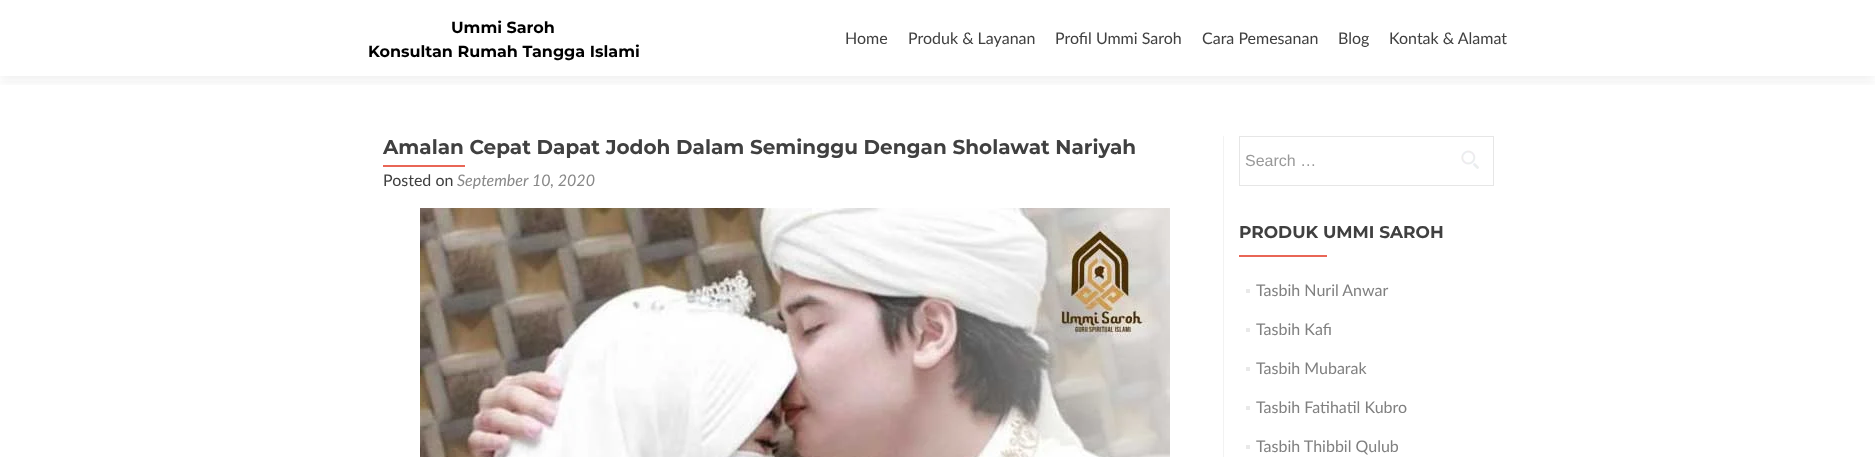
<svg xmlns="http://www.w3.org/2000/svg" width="1875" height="457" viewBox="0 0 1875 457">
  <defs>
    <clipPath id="clip1"><rect x="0" y="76" width="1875" height="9"/></clipPath>
    <filter id="blur1" x="-50%" y="-200%" width="200%" height="500%"><feGaussianBlur stdDeviation="5.5"/></filter>
  </defs>
  <rect width="100%" height="100%" fill="#ffffff"/>
  <g clip-path="url(#clip1)">
    <rect x="0" y="5" width="1875" height="76" fill="#323232" fill-opacity="0.08" filter="url(#blur1)"/>
  </g>
  <text x="451" y="33" font-family="Montserrat" font-size="16" font-weight="bold" fill="#000000">Ummi Saroh</text>
  <text x="368" y="57" font-family="Montserrat" font-size="16" font-weight="bold" fill="#000000">Konsultan Rumah Tangga Islami</text>
  <text x="845" y="44" font-family="Lato" font-size="16" fill="#404040">Home</text>
  <text x="908" y="44" font-family="Lato" font-size="16" fill="#404040">Produk &amp; Layanan</text>
  <text x="1055" y="44" font-family="Lato" font-size="16" fill="#404040">Profil Ummi Saroh</text>
  <text x="1202" y="44" font-family="Lato" font-size="16" fill="#404040">Cara Pemesanan</text>
  <text x="1338" y="44" font-family="Lato" font-size="16" fill="#404040">Blog</text>
  <text x="1389" y="44" font-family="Lato" font-size="16" fill="#404040">Kontak &amp; Alamat</text>
  <text x="383" y="154" font-family="Montserrat" font-size="20" font-weight="bold" fill="#404040">Amalan Cepat Dapat Jodoh Dalam Seminggu Dengan Sholawat Nariyah</text>
  <rect x="383" y="165" width="82" height="2" fill="#e96656"/>
  <text x="383" y="186" font-family="Lato" font-size="16" fill="#404040">Posted on</text>
  <text x="457" y="186" font-family="Lato" font-size="16" font-style="italic" fill="#888888">September 10, 2020</text>
  <image x="420" y="208" width="750" height="249" href="img1.png"/>
  <rect x="1223" y="136" width="1" height="321" fill="#f2f2f2"/>
  <rect x="1239.5" y="136.5" width="254" height="49" fill="none" stroke="#e6e6e6"/>
  <text x="1245" y="166" font-family="Liberation Sans" font-size="16" fill="#999999">Search …</text>
  <image x="1461" y="150" width="18" height="19" href="img2.png"/>
  <text x="1239" y="238" font-family="Montserrat" font-size="17" font-weight="bold" fill="#404040">PRODUK UMMI SAROH</text>
  <rect x="1239" y="255" width="88" height="2" fill="#e96656"/>
  <rect x="1246" y="289" width="4" height="4" fill="#e9e9e9"/>
  <text x="1256" y="296" font-family="Lato" font-size="16" fill="#808080">Tasbih Nuril Anwar</text>
  <rect x="1246" y="328" width="4" height="4" fill="#e9e9e9"/>
  <text x="1256" y="335" font-family="Lato" font-size="16" fill="#808080">Tasbih Kafi</text>
  <rect x="1246" y="367" width="4" height="4" fill="#e9e9e9"/>
  <text x="1256" y="374" font-family="Lato" font-size="16" fill="#808080">Tasbih Mubarak</text>
  <rect x="1246" y="406" width="4" height="4" fill="#e9e9e9"/>
  <text x="1256" y="413" font-family="Lato" font-size="16" fill="#808080">Tasbih Fatihatil Kubro</text>
  <rect x="1246" y="445" width="4" height="4" fill="#e9e9e9"/>
  <text x="1256" y="452" font-family="Lato" font-size="16" fill="#808080">Tasbih Thibbil Qulub</text>
</svg>
